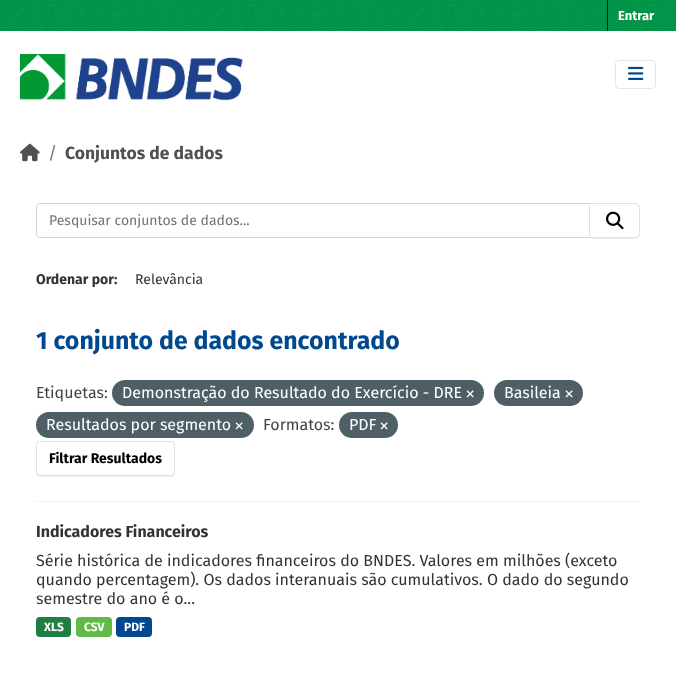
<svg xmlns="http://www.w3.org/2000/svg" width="676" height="676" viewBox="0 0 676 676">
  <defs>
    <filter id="blur1" x="-50%" y="-200%" width="200%" height="500%"><feGaussianBlur stdDeviation="0.5"/></filter>
  </defs>
  <rect width="100%" height="100%" fill="#ffffff"/>
  <rect x="0" y="0" width="676" height="31" fill="#00984a"/>
  <image x="0" y="0" width="676" height="31" href="img1.png"/>
  <rect x="607" y="0" width="1" height="31" fill="#00232e"/>
  <text x="618" y="20" font-family="Fira Sans" font-size="13" font-weight="bold" fill="#ffffff">Entrar</text>
  <image x="20" y="54" width="223" height="47" href="img2.png"/>
  <rect x="615.5" y="60.5" width="40" height="28" rx="3.5" fill="none" stroke="#e6e6e6"/>
  <image x="628" y="66" width="16" height="14" href="img3.png"/>
  <image x="20" y="143" width="20" height="19" href="img4.png"/>
  <text x="48" y="159" font-family="Fira Sans" font-size="17.5" fill="#6c757d">/</text>
  <text x="65" y="159" font-family="Fira Sans" font-size="17.5" font-weight="bold" fill="#505050">Conjuntos de dados</text>
  <path d="M36 501.5H640" fill="none" stroke="#dddddd" stroke-dasharray="1 1"/>
  <path d="M40 203.5H589.5V237.5H40C38 237.5 36.5 236 36.5 234V207C36.5 205 38 203.5 40 203.5Z" fill="none" stroke="#ced4da"/>
  <text x="49" y="225" font-family="Fira Sans" font-size="14" fill="#6c757d">Pesquisar conjuntos de dados...</text>
  <rect x="589" y="204" width="51" height="35" rx="5" fill="#000000" fill-opacity="0.07" filter="url(#blur1)"/>
  <path d="M589.5 203.5H635C637.5 203.5 639.5 205.5 639.5 208V233C639.5 235.5 637.5 237.5 635 237.5H589.5Z" fill="#ffffff" stroke="#dee2e6"/>
  <image x="606" y="211" width="18" height="19" href="img5.png"/>
  <text x="36" y="284" font-family="Fira Sans" font-size="14" font-weight="bold" fill="#333333">Ordenar por:</text>
  <text x="135" y="284" font-family="Fira Sans" font-size="14" fill="#333333">Relevância</text>
  <text x="36" y="349" font-family="Fira Sans" font-size="24.9" font-weight="bold" fill="#01498f">1 conjunto de dados encontrado</text>
  <text x="36" y="398" font-family="Fira Sans" font-size="16" fill="#444444">Etiquetas:</text>
  <rect x="112" y="380" width="372" height="26" rx="13" fill="#4e5f65"/>
  <text x="122" y="398" font-family="Fira Sans" font-size="16" fill="#ffffff">Demonstração do Resultado do Exercício - DRE</text>
  <image x="466" y="390" width="8" height="8" href="img6.png"/>
  <rect x="494" y="380" width="89" height="26" rx="13" fill="#4e5f65"/>
  <text x="504" y="398" font-family="Fira Sans" font-size="16" fill="#ffffff">Basileia</text>
  <image x="565" y="390" width="8" height="8" href="img6.png"/>
  <rect x="36" y="412" width="218" height="26" rx="13" fill="#4e5f65"/>
  <text x="46" y="430" font-family="Fira Sans" font-size="16" fill="#ffffff">Resultados por segmento</text>
  <image x="235" y="422" width="8" height="8" href="img6.png"/>
  <text x="263" y="430" font-family="Fira Sans" font-size="16" fill="#444444">Formatos:</text>
  <rect x="339" y="412" width="59" height="26" rx="13" fill="#4e5f65"/>
  <text x="349" y="430" font-family="Fira Sans" font-size="16" fill="#ffffff">PDF</text>
  <image x="380" y="422" width="8" height="8" href="img6.png"/>
  <rect x="36" y="442" width="139" height="35" rx="4" fill="#000000" fill-opacity="0.07" filter="url(#blur1)"/>
  <rect x="36.5" y="441.5" width="138" height="34" rx="3.5" fill="#ffffff" stroke="#dee2e6"/>
  <text x="49" y="463" font-family="Fira Sans" font-size="14" font-weight="bold" fill="#000000">Filtrar Resultados</text>
  <text x="36" y="537" font-family="Fira Sans" font-size="16" font-weight="bold" fill="#333333">Indicadores Financeiros</text>
  <text x="36" y="566" font-family="Fira Sans" font-size="16" fill="#333333">Série histórica de indicadores financeiros do BNDES. Valores em milhões (exceto</text>
  <text x="36" y="585" font-family="Fira Sans" font-size="16" fill="#333333">quando percentagem). Os dados interanuais são cumulativos. O dado do segundo</text>
  <text x="36" y="604" font-family="Fira Sans" font-size="16" fill="#333333">semestre do ano é o...</text>
  <rect x="36" y="617" width="35" height="20" rx="4" fill="#207e42"/>
  <text x="44" y="631" font-family="Fira Sans" font-size="12" font-weight="bold" fill="#ffffff">XLS</text>
  <rect x="76" y="617" width="36" height="20" rx="4" fill="#60bb46"/>
  <text x="84" y="631" font-family="Fira Sans" font-size="12" font-weight="bold" fill="#ffffff">CSV</text>
  <rect x="116" y="617" width="36" height="20" rx="4" fill="#01498f"/>
  <text x="124" y="631" font-family="Fira Sans" font-size="12" font-weight="bold" fill="#ffffff">PDF</text>
</svg>
